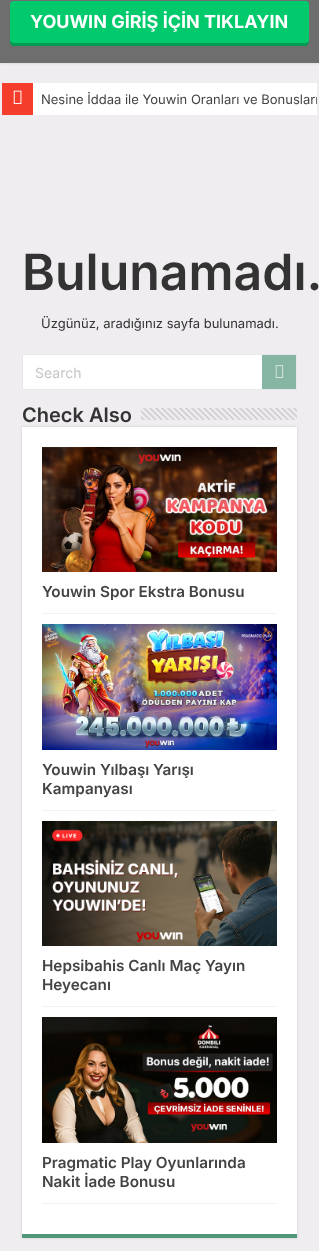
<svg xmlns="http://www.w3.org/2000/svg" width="319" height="1251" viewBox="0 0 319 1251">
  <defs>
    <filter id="blur1" x="-50%" y="-200%" width="200%" height="500%"><feGaussianBlur stdDeviation="1.5"/></filter>
    <filter id="blur2" x="-50%" y="-200%" width="200%" height="500%"><feGaussianBlur stdDeviation="0.5"/></filter>
    <clipPath id="clip1"><rect x="2" y="83" width="315" height="32"/></clipPath>
  </defs>
  <rect width="100%" height="100%" fill="#f0edf0"/>
  <rect x="0" y="-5" width="319" height="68" fill="#cacaca" filter="url(#blur1)"/>
  <rect x="0" y="0" width="319" height="63" fill="#6e6e6e"/>
  <path d="M10 39C10 42 10 45 13 46H305C309 46 309 42 309 39C309 41 307 43 305 43H14C12 43 10 41 10 39Z" fill="#009a52"/>
  <rect x="10" y="1" width="299" height="42" rx="4" fill="#00ca6b"/>
  <text x="30" y="28" font-family="Inter" font-size="18" font-weight="bold" fill="#ffffff">YOUWIN GİRİŞ İÇİN TIKLAYIN</text>
  <rect x="2" y="83" width="315" height="32" fill="#cacaca" filter="url(#blur2)"/>
  <rect x="33" y="83" width="284" height="32" fill="#ffffff"/>
  <rect x="2" y="83" width="31" height="32" fill="#f43d2a"/>
  <image x="13" y="90" width="9" height="14" href="img1.png"/>
  <g clip-path="url(#clip1)">
    <text x="41" y="104" font-family="Inter" font-size="13" fill="#444444">Nesine İddaa ile Youwin Oranları ve Bonusları</text>
  </g>
  <text x="22" y="290" font-family="Inter" font-size="50" font-weight="600" fill="#333333">Bulunamadı.</text>
  <text x="41" y="328" font-family="Inter" font-size="13" fill="#333333">Üzgünüz, aradığınız sayfa bulunamadı.</text>
  <rect x="23" y="355" width="239" height="34" fill="#ffffff"/>
  <rect x="22.5" y="354.5" width="274" height="35" fill="none" stroke="#e8e8e8"/>
  <text x="35" y="378" font-family="Inter" font-size="14" fill="#c5c5c5">Search</text>
  <rect x="262" y="355" width="34" height="34" fill="#86b6a3"/>
  <image x="275" y="365" width="9" height="13" href="img2.png"/>
  <rect x="22" y="427" width="275" height="811" fill="#cacaca" filter="url(#blur1)"/>
  <text x="22" y="422" font-family="Inter" font-size="20" font-weight="600" fill="#333333">Check Also</text>
  <image x="141" y="408" width="156" height="12" href="img3.png"/>
  <rect x="22" y="427" width="275" height="807" fill="#ffffff"/>
  <rect x="22" y="1234" width="275" height="4" fill="#52967c"/>
  <image x="42" y="447" width="235" height="125" href="img4.png"/>
  <text x="42" y="597" font-family="Inter" font-size="15.25" font-weight="600" fill="#444444">Youwin Spor Ekstra Bonusu</text>
  <rect x="42" y="613" width="235" height="1" fill="#f2f2f2"/>
  <image x="42" y="624" width="235" height="126" href="img5.png"/>
  <text x="42" y="775" font-family="Inter" font-size="15.25" font-weight="600" fill="#444444">Youwin Yılbaşı Yarışı</text>
  <text x="42" y="794" font-family="Inter" font-size="15.25" font-weight="600" fill="#444444">Kampanyası</text>
  <rect x="42" y="810" width="235" height="1" fill="#f2f2f2"/>
  <image x="42" y="821" width="235" height="125" href="img6.png"/>
  <text x="42" y="971" font-family="Inter" font-size="15.25" font-weight="600" fill="#444444">Hepsibahis Canlı Maç Yayın</text>
  <text x="42" y="990" font-family="Inter" font-size="15.25" font-weight="600" fill="#444444">Heyecanı</text>
  <rect x="42" y="1006" width="235" height="1" fill="#f2f2f2"/>
  <image x="42" y="1017" width="235" height="126" href="img7.png"/>
  <text x="42" y="1168" font-family="Inter" font-size="15.25" font-weight="600" fill="#444444">Pragmatic Play Oyunlarında</text>
  <text x="42" y="1187" font-family="Inter" font-size="15.25" font-weight="600" fill="#444444">Nakit İade Bonusu</text>
  <rect x="42" y="1203" width="235" height="1" fill="#f2f2f2"/>
</svg>
